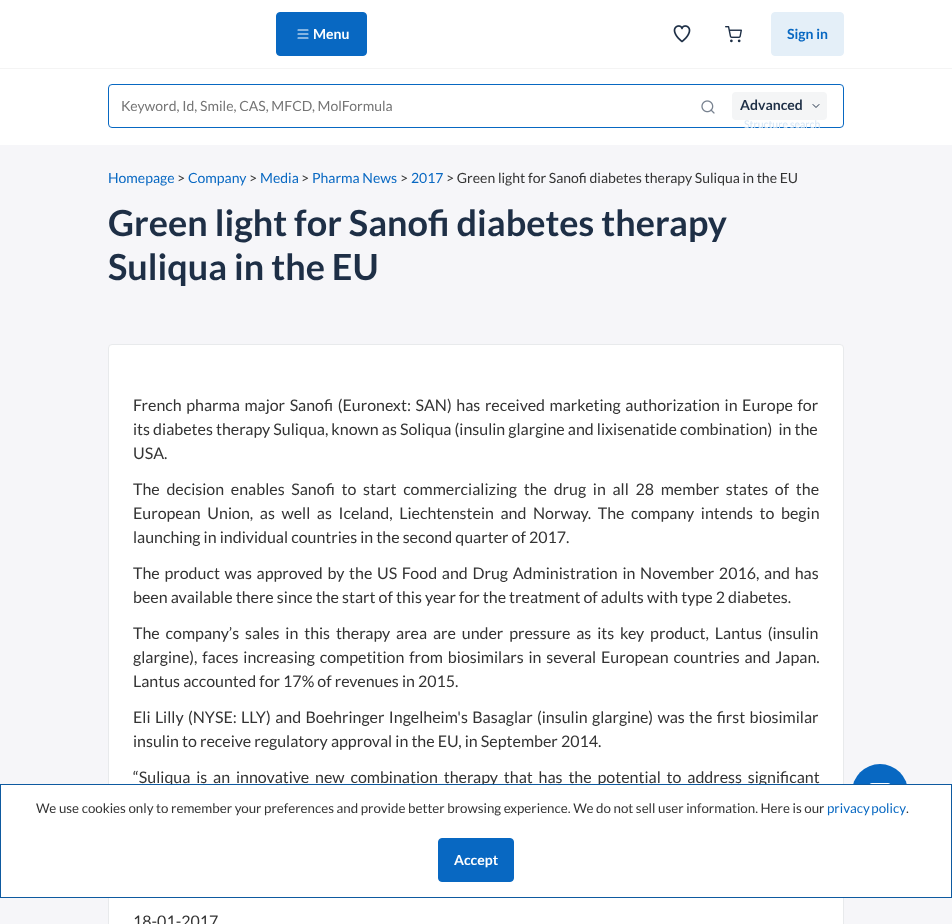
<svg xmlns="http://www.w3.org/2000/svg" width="952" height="924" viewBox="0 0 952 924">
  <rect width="100%" height="100%" fill="#f6f6f9"/>
  <rect x="0" y="0" width="952" height="68" fill="#ffffff"/>
  <rect x="0" y="68" width="952" height="1" fill="#f4f4f4"/>
  <rect x="276.5" y="12.5" width="90" height="43" rx="3.5" fill="#0868c2" stroke="#0868c2"/>
  <path d="M298 30H308M298 34H308M298 38H308" fill="none" stroke="#ffffff" stroke-width="1.1" stroke-linecap="round" stroke-linejoin="round"/>
  <text x="313" y="39" font-family="Lato" font-size="14" font-weight="bold" fill="#ffffff">Menu</text>
  <image x="673" y="25" width="18" height="18" href="img1.png"/>
  <image x="725" y="26" width="17" height="17" href="img2.png"/>
  <rect x="771.5" y="12.5" width="72" height="43" rx="3.5" fill="#e4eff8" stroke="#e4eff8"/>
  <text x="787" y="39" font-family="Lato" font-size="14" font-weight="bold" fill="#0868c2">Sign in</text>
  <rect x="0" y="69" width="952" height="76" fill="#ffffff"/>
  <rect x="108.5" y="84.5" width="735" height="43" rx="3.5" fill="none" stroke="#0868c2"/>
  <text x="121" y="111" font-family="Lato" font-size="14" fill="#757575">Keyword, Id, Smile, CAS, MFCD, MolFormula</text>
  <image x="701" y="100" width="14" height="14" href="img3.png"/>
  <rect x="732" y="92" width="95" height="28" rx="4" fill="#f4f5f6"/>
  <text x="740" y="110" font-family="Lato" font-size="14" font-weight="bold" fill="#1e2f46">Advanced</text>
  <path d="M813 104.5L816 107.5L819 104.5" fill="none" stroke="#1e2f46" stroke-linecap="round" stroke-linejoin="round"/>
  <text x="744" y="128" font-family="Lato" font-size="10.5" fill="#d6e6f5">Structure search</text>
  <text x="108" y="183" font-family="Lato" font-size="14" fill="#0868c2">Homepage</text>
  <text x="177" y="183" font-family="Lato" font-size="14" fill="#333333">&gt;</text>
  <text x="188" y="183" font-family="Lato" font-size="14" fill="#0868c2">Company</text>
  <text x="249" y="183" font-family="Lato" font-size="14" fill="#333333">&gt;</text>
  <text x="260" y="183" font-family="Lato" font-size="14" fill="#0868c2">Media</text>
  <text x="301" y="183" font-family="Lato" font-size="14" fill="#333333">&gt;</text>
  <text x="312" y="183" font-family="Lato" font-size="14" fill="#0868c2">Pharma News</text>
  <text x="400" y="183" font-family="Lato" font-size="14" fill="#333333">&gt;</text>
  <text x="411" y="183" font-family="Lato" font-size="14" fill="#0868c2">2017</text>
  <text x="446" y="183" font-family="Lato" font-size="14" fill="#333333">&gt; Green light for Sanofi diabetes therapy Suliqua in the EU</text>
  <text x="108" y="236" font-family="Lato" font-size="36" font-weight="bold" fill="#1e2f46">Green light for Sanofi diabetes therapy</text>
  <text x="108" y="280" font-family="Lato" font-size="36" font-weight="bold" fill="#1e2f46">Suliqua in the EU</text>
  <rect x="108.5" y="344.5" width="735" height="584" rx="3.5" fill="#ffffff" stroke="#e8eaec"/>
  <text x="133" y="411" word-spacing="1.5" font-family="Lato" font-size="16" fill="#333333">French pharma major Sanofi (Euronext: SAN) has received marketing authorization in Europe for</text>
  <text x="133" y="435" font-family="Lato" font-size="16" fill="#333333" xml:space="preserve">its diabetes therapy Suliqua, known as Soliqua (insulin glargine and lixisenatide combination)  in the</text>
  <text x="133" y="459" font-family="Lato" font-size="16" fill="#333333">USA.</text>
  <text x="133" y="495" word-spacing="3.6" font-family="Lato" font-size="16" fill="#333333">The decision enables Sanofi to start commercializing the drug in all 28 member states of the</text>
  <text x="133" y="519" word-spacing="3.5" font-family="Lato" font-size="16" fill="#333333">European Union, as well as Iceland, Liechtenstein and Norway. The company intends to begin</text>
  <text x="133" y="543" font-family="Lato" font-size="16" fill="#333333">launching in individual countries in the second quarter of 2017.</text>
  <text x="133" y="579" word-spacing="1.6" font-family="Lato" font-size="16" fill="#333333">The product was approved by the US Food and Drug Administration in November 2016, and has</text>
  <text x="133" y="603" font-family="Lato" font-size="16" fill="#333333">been available there since the start of this year for the treatment of adults with type 2 diabetes.</text>
  <text x="133" y="639" word-spacing="2.75" font-family="Lato" font-size="16" fill="#333333">The company’s sales in this therapy area are under pressure as its key product, Lantus (insulin</text>
  <text x="133" y="663" word-spacing="1.75" font-family="Lato" font-size="16" fill="#333333">glargine), faces increasing competition from biosimilars in several European countries and Japan.</text>
  <text x="133" y="687" font-family="Lato" font-size="16" fill="#333333">Lantus accounted for 17% of revenues in 2015.</text>
  <text x="133" y="723" word-spacing="1.3" font-family="Lato" font-size="16" fill="#333333">Eli Lilly (NYSE: LLY) and Boehringer Ingelheim's Basaglar (insulin glargine) was the first biosimilar</text>
  <text x="133" y="747" font-family="Lato" font-size="16" fill="#333333">insulin to receive regulatory approval in the EU, in September 2014.</text>
  <text x="133" y="783" word-spacing="2.75" font-family="Lato" font-size="16" fill="#333333">“Suliqua is an innovative new combination therapy that has the potential to address significant</text>
  <text x="133" y="927" font-family="Lato" font-size="16" fill="#333333">18-01-2017</text>
  <circle cx="880" cy="792" r="28" fill="#0868c2"/>
  <image x="869" y="783" width="22" height="1" href="img4.png"/>
  <rect x="0.5" y="784.5" width="951" height="113" fill="#ffffff" stroke="#0e5aa0"/>
  <text x="36" y="813" font-family="Lato" font-size="13.33" fill="#333333">We use cookies only to remember your preferences and provide better browsing experience. We do not sell user information. Here is our</text>
  <text x="827" y="813" word-spacing="-1" font-family="Lato" font-size="13.33" fill="#0868c2">privacy policy</text>
  <text x="906" y="813" font-family="Lato" font-size="13.33" fill="#333333">.</text>
  <rect x="438.5" y="838.5" width="75" height="43" rx="3.5" fill="#0868c2" stroke="#0868c2"/>
  <text x="454" y="865" font-family="Lato" font-size="14" font-weight="bold" fill="#ffffff">Accept</text>
</svg>
